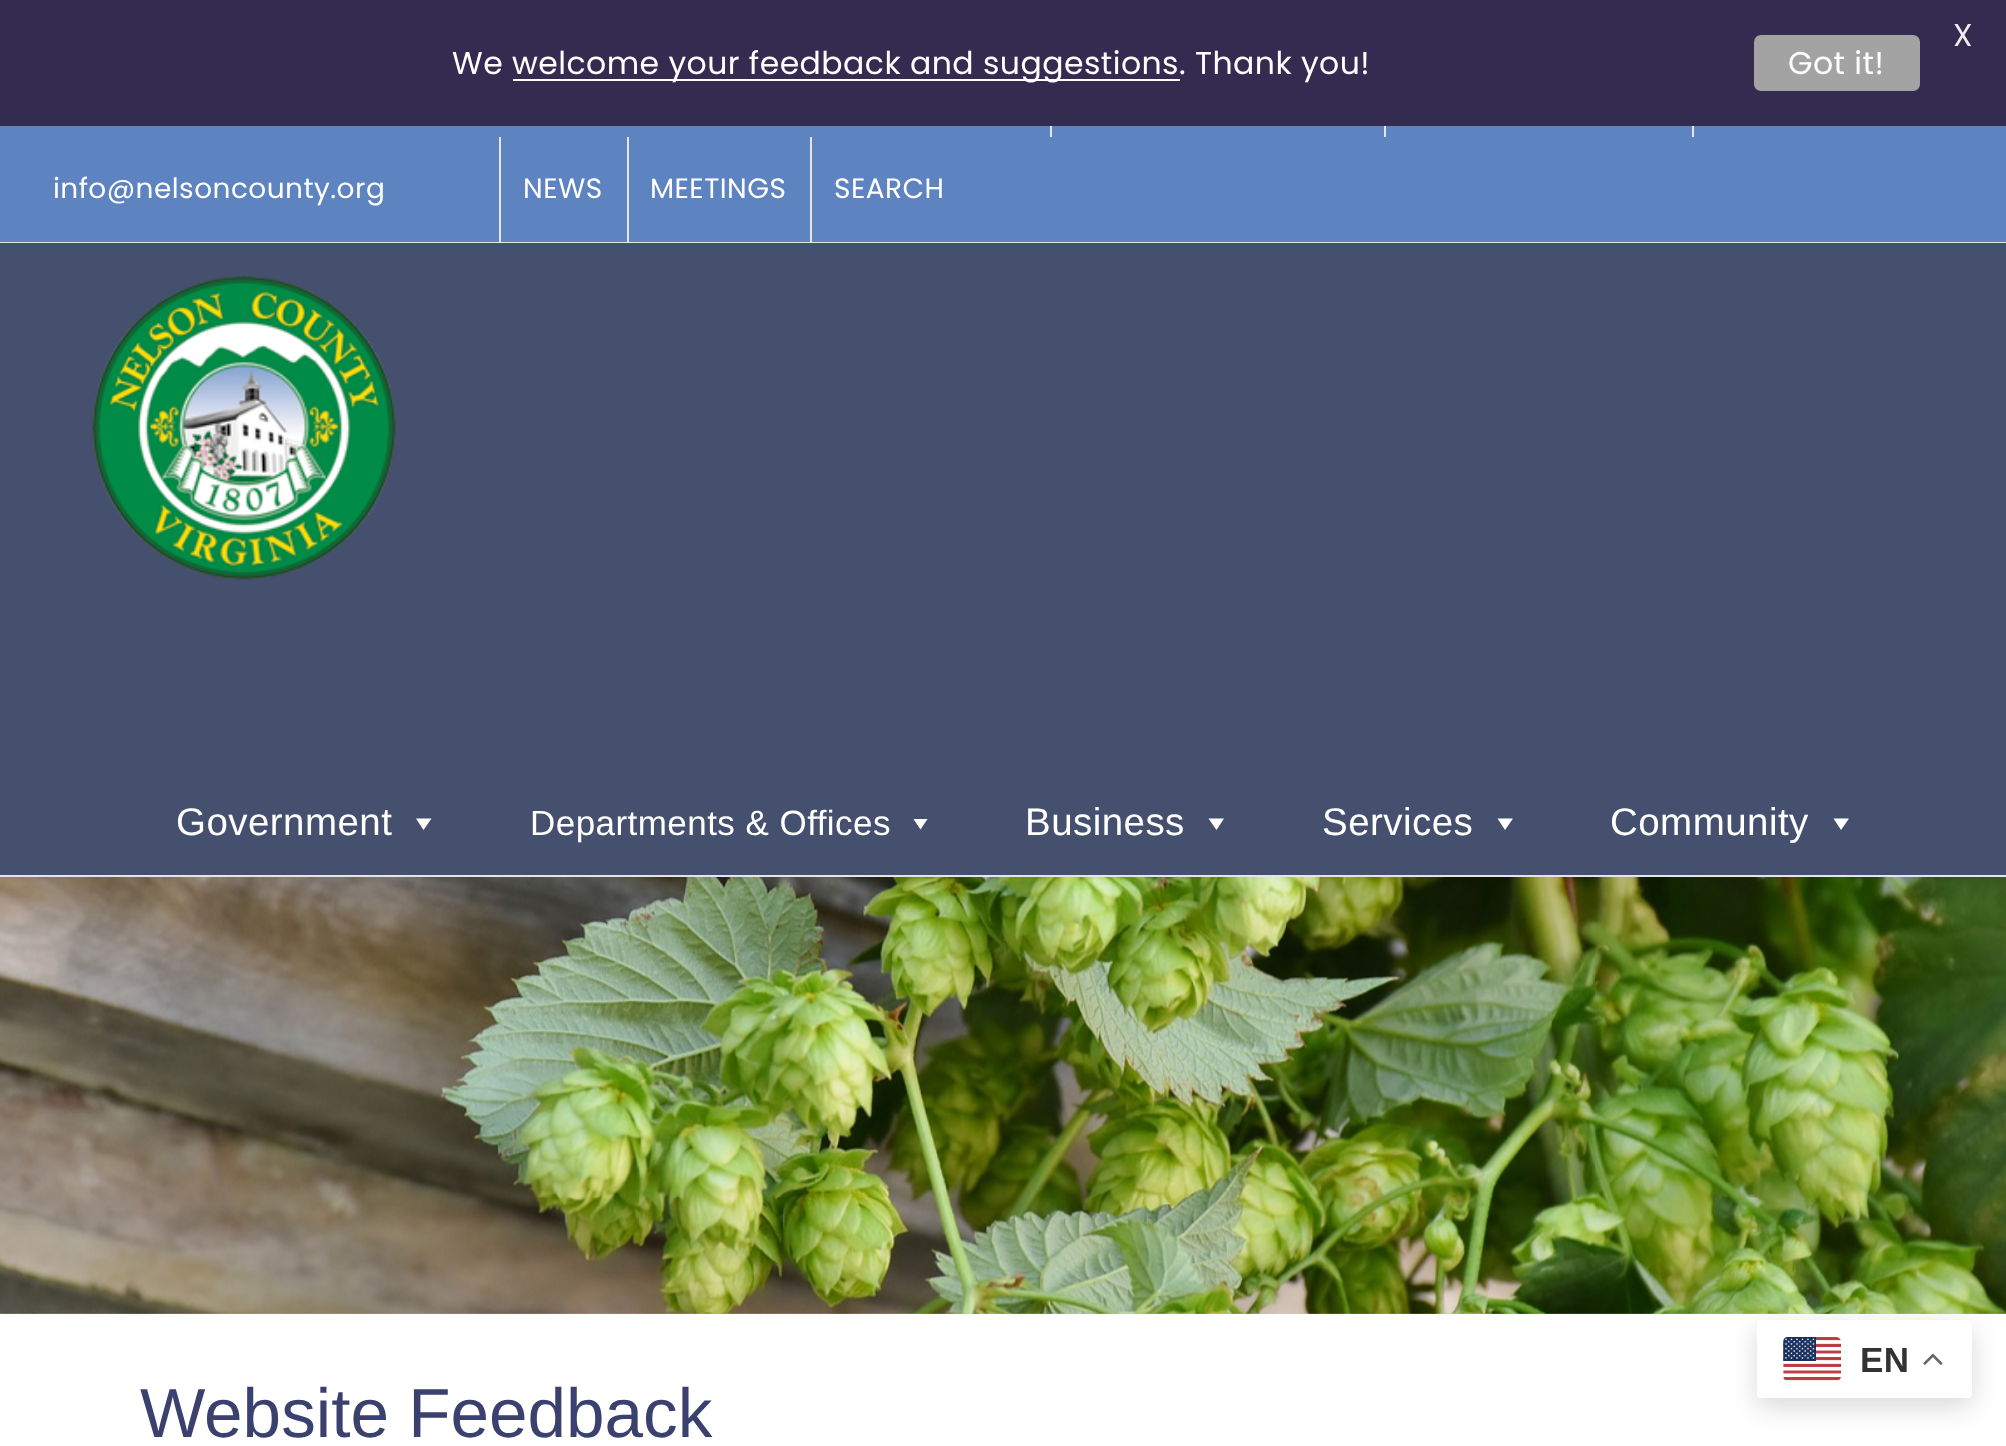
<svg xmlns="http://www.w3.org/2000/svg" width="2006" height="1446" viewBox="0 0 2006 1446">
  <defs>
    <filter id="blur1" x="-50%" y="-200%" width="200%" height="500%"><feGaussianBlur stdDeviation="13"/></filter>
  </defs>
  <rect width="100%" height="100%" fill="#ffffff"/>
  <image x="0" y="1313" width="2006" height="1" href="img1.png"/>
  <rect x="0" y="0" width="2006" height="126" fill="#342b51"/>
  <text x="1953" y="46" font-family="Poppins" font-size="31.5" letter-spacing="0.45" fill="#efefef">X</text>
  <text x="452" y="74" font-family="Poppins" font-size="31.5" letter-spacing="0.45" fill="#ffffff">We</text>
  <rect x="513" y="79" width="667" height="2" fill="#ffffff"/>
  <text x="512" y="74" font-family="Poppins" font-size="31.5" letter-spacing="0.45" fill="#ffffff">welcome your feedback and suggestions. Thank you!</text>
  <rect x="1754" y="35" width="166" height="56" rx="7" fill="#a3a3a3"/>
  <text x="1788" y="74" font-family="Poppins" font-size="31.5" letter-spacing="0.45" fill="#ffffff">Got it!</text>
  <image x="0" y="877" width="2006" height="437" href="img5.png"/>
  <rect x="1757" y="1328" width="215" height="79" rx="4" fill="#000000" fill-opacity="0.15" filter="url(#blur1)"/>
  <rect x="1757" y="1320" width="215" height="78" rx="4" fill="#ffffff"/>
  <image x="1783" y="1337" width="58" height="44" href="img2.png"/>
  <text x="1860" y="1372" font-family="Liberation Sans" font-size="35" font-weight="bold" letter-spacing="0.45" fill="#333333">EN</text>
  <image x="1923" y="1353" width="20" height="12" href="img3.png"/>
  <rect x="0" y="126" width="2006" height="116" fill="#5d83c1"/>
  <rect x="0" y="242" width="2006" height="1" fill="#e5e5e5"/>
  <text x="53" y="198" font-family="Poppins" font-size="28" letter-spacing="0.45" fill="#ffffff">info@nelsoncounty.org</text>
  <rect x="1050" y="126" width="2" height="11" fill="#e5e5e5"/>
  <rect x="1384" y="126" width="2" height="11" fill="#e5e5e5"/>
  <rect x="1692" y="126" width="2" height="11" fill="#e5e5e5"/>
  <rect x="499" y="137" width="2" height="105" fill="#e5e5e5"/>
  <text x="523" y="198" font-family="Poppins" font-size="28" letter-spacing="0.45" fill="#ffffff">NEWS</text>
  <rect x="627" y="137" width="2" height="105" fill="#e5e5e5"/>
  <text x="650" y="198" font-family="Poppins" font-size="28" letter-spacing="0.45" fill="#ffffff">MEETINGS</text>
  <rect x="810" y="137" width="2" height="105" fill="#e5e5e5"/>
  <text x="834" y="198" font-family="Poppins" font-size="28" letter-spacing="0.45" fill="#ffffff">SEARCH</text>
  <rect x="0" y="243" width="2006" height="632" fill="#45506f"/>
  <rect x="0" y="875" width="2006" height="2" fill="#e5e5e5"/>
  <image x="92" y="276" width="304" height="304" href="img4.png"/>
  <text x="176" y="835" font-family="Liberation Sans" font-size="38.5" letter-spacing="0.45" fill="#ffffff">Government</text>
  <path d="M431.5 818.5L423.5 830L416 818.5Z" fill="#ffffff"/>
  <text x="530" y="835" font-family="Liberation Sans" font-size="35" letter-spacing="0.45" fill="#ffffff">Departments &amp; Offices</text>
  <path d="M927.5 819L920.5 829.5L913.5 819Z" fill="#ffffff"/>
  <text x="1025" y="835" font-family="Liberation Sans" font-size="38.5" letter-spacing="0.45" fill="#ffffff">Business</text>
  <path d="M1224 818.5L1216.5 830L1208.5 818.5Z" fill="#ffffff"/>
  <text x="1322" y="835" font-family="Liberation Sans" font-size="38.5" letter-spacing="0.45" fill="#ffffff">Services</text>
  <path d="M1513 818.5L1505 830L1497.5 818.5Z" fill="#ffffff"/>
  <text x="1610" y="835" font-family="Liberation Sans" font-size="38.5" letter-spacing="0.45" fill="#ffffff">Community</text>
  <path d="M1849 818.5L1841 830L1833.5 818.5Z" fill="#ffffff"/>
  <text x="140" y="1437" font-family="Liberation Sans" font-size="69.25" fill="#3a416f">Website Feedback</text>
</svg>
